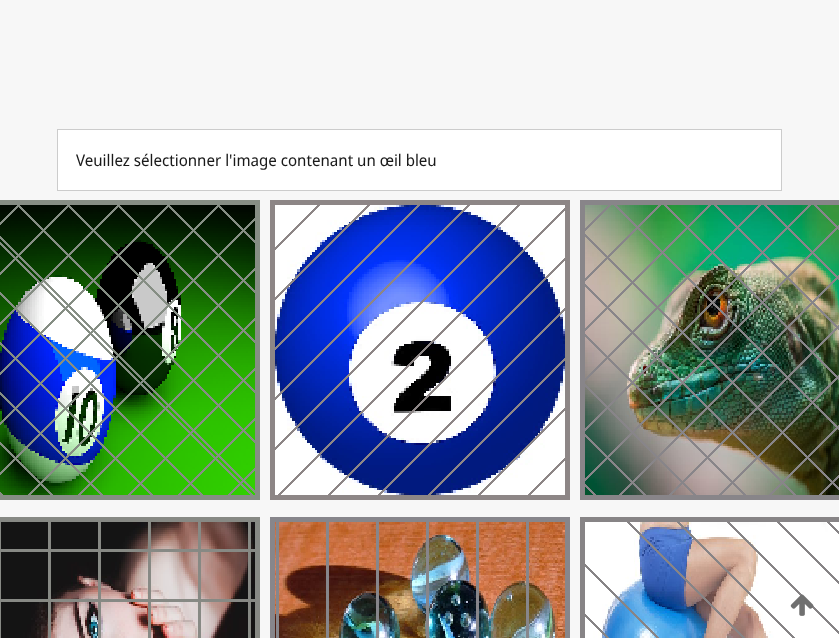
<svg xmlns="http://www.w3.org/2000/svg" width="839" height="638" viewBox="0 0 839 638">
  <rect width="100%" height="100%" fill="#f7f7f7"/>
  <rect x="57.5" y="129.5" width="724" height="61" fill="#ffffff" stroke="#cccccc"/>
  <text x="76" y="166" font-family="Noto Sans Display" font-size="16" fill="#1a1a1a">Veuillez sélectionner l'image contenant un œil bleu</text>
  <image x="0" y="200" width="260" height="300" href="img1.png"/>
  <image x="270" y="200" width="300" height="300" href="img2.png"/>
  <image x="580" y="200" width="259" height="300" href="img3.png"/>
  <image x="0" y="517" width="260" height="121" href="img4.png"/>
  <image x="270" y="517" width="300" height="121" href="img5.png"/>
  <image x="580" y="517" width="259" height="121" href="img6.png"/>
  <image x="790" y="594" width="24" height="22" href="img7.png"/>
</svg>
